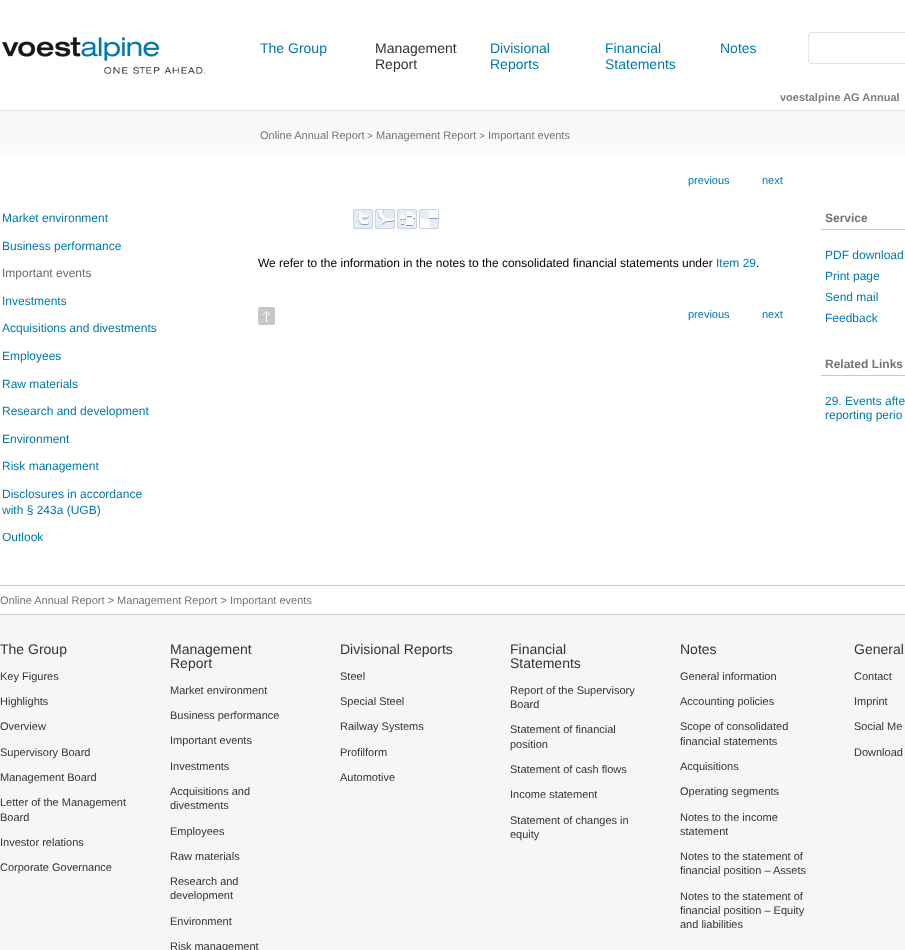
<svg xmlns="http://www.w3.org/2000/svg" width="905" height="950" viewBox="0 0 905 950">
  <rect width="100%" height="100%" fill="#ffffff"/>
  <image x="0" y="110" width="905" height="47" href="img1.png"/>
  <image x="2" y="37" width="203" height="37" href="img2.png"/>
  <text x="260" y="53" font-family="Liberation Sans" font-size="14" fill="#0078ab">The Group</text>
  <text x="375" y="53" font-family="Liberation Sans" font-size="14" fill="#333333">Management</text>
  <text x="375" y="69" font-family="Liberation Sans" font-size="14" fill="#333333">Report</text>
  <text x="490" y="53" font-family="Liberation Sans" font-size="14" fill="#0078ab">Divisional</text>
  <text x="490" y="69" font-family="Liberation Sans" font-size="14" fill="#0078ab">Reports</text>
  <text x="605" y="53" font-family="Liberation Sans" font-size="14" fill="#0078ab">Financial</text>
  <text x="605" y="69" font-family="Liberation Sans" font-size="14" fill="#0078ab">Statements</text>
  <text x="720" y="53" font-family="Liberation Sans" font-size="14" fill="#0078ab">Notes</text>
  <image x="808" y="32" width="97" height="32" href="img3.png"/>
  <rect x="809" y="38" width="6" height="19" fill="#ffffff"/>
  <text x="780" y="101" font-family="Liberation Sans" font-size="11" font-weight="bold" fill="#7e7e7e">voestalpine AG Annual</text>
  <text x="260" y="139" font-family="Liberation Sans" font-size="11" fill="#747474">Online Annual Report</text>
  <text x="367" y="139" font-family="Liberation Sans" font-size="10" fill="#747474">&gt;</text>
  <text x="376" y="139" font-family="Liberation Sans" font-size="11" fill="#747474">Management Report</text>
  <text x="479" y="139" font-family="Liberation Sans" font-size="10" fill="#747474">&gt;</text>
  <text x="488" y="139" font-family="Liberation Sans" font-size="11" fill="#747474">Important events</text>
  <text x="2" y="222" font-family="Liberation Sans" font-size="12" fill="#0078ab">Market environment</text>
  <text x="2" y="250" font-family="Liberation Sans" font-size="12" fill="#0078ab">Business performance</text>
  <text x="2" y="277" font-family="Liberation Sans" font-size="12" fill="#6a6c6c">Important events</text>
  <text x="2" y="305" font-family="Liberation Sans" font-size="12" fill="#0078ab">Investments</text>
  <text x="2" y="332" font-family="Liberation Sans" font-size="12" fill="#0078ab">Acquisitions and divestments</text>
  <text x="2" y="360" font-family="Liberation Sans" font-size="12" fill="#0078ab">Employees</text>
  <text x="2" y="388" font-family="Liberation Sans" font-size="12" fill="#0078ab">Raw materials</text>
  <text x="2" y="415" font-family="Liberation Sans" font-size="12" fill="#0078ab">Research and development</text>
  <text x="2" y="443" font-family="Liberation Sans" font-size="12" fill="#0078ab">Environment</text>
  <text x="2" y="470" font-family="Liberation Sans" font-size="12" fill="#0078ab">Risk management</text>
  <text x="2" y="498" font-family="Liberation Sans" font-size="12" fill="#0078ab">Disclosures in accordance</text>
  <text x="2" y="514" font-family="Liberation Sans" font-size="12" fill="#0078ab">with § 243a (UGB)</text>
  <text x="2" y="541" font-family="Liberation Sans" font-size="12" fill="#0078ab">Outlook</text>
  <text x="688" y="184" font-family="Liberation Sans" font-size="11" fill="#0078ab">previous</text>
  <text x="762" y="184" font-family="Liberation Sans" font-size="11" fill="#0078ab">next</text>
  <image x="353" y="209" width="20" height="20" href="img4.png"/>
  <image x="375" y="209" width="20" height="20" href="img5.png"/>
  <image x="397" y="209" width="20" height="20" href="img6.png"/>
  <image x="419" y="209" width="20" height="20" href="img7.png"/>
  <text x="258" y="267" font-family="Liberation Sans" font-size="12" fill="#000000">We refer to the information in the notes to the consolidated financial statements under</text>
  <text x="716" y="267" font-family="Liberation Sans" font-size="12" fill="#0078ab">Item 29</text>
  <text x="756" y="267" font-family="Liberation Sans" font-size="12" fill="#000000">.</text>
  <image x="258" y="307" width="17" height="18" href="img8.png"/>
  <text x="688" y="318" font-family="Liberation Sans" font-size="11" fill="#0078ab">previous</text>
  <text x="762" y="318" font-family="Liberation Sans" font-size="11" fill="#0078ab">next</text>
  <rect x="821" y="229" width="84" height="1" fill="#c6c7c8"/>
  <text x="825" y="222" font-family="Liberation Sans" font-size="12" font-weight="bold" fill="#747474">Service</text>
  <text x="825" y="259" font-family="Liberation Sans" font-size="12" fill="#0078ab">PDF download</text>
  <text x="825" y="280" font-family="Liberation Sans" font-size="12" fill="#0078ab">Print page</text>
  <text x="825" y="301" font-family="Liberation Sans" font-size="12" fill="#0078ab">Send mail</text>
  <text x="825" y="322" font-family="Liberation Sans" font-size="12" fill="#0078ab">Feedback</text>
  <rect x="821" y="375" width="84" height="1" fill="#c6c7c8"/>
  <text x="825" y="368" font-family="Liberation Sans" font-size="12" font-weight="bold" fill="#747474">Related Links</text>
  <text x="825" y="405" font-family="Liberation Sans" font-size="12" fill="#0078ab">29. Events afte</text>
  <text x="825" y="419" font-family="Liberation Sans" font-size="12" fill="#0078ab">reporting perio</text>
  <rect x="0" y="615" width="905" height="335" fill="#f6f6f6"/>
  <rect x="0" y="585" width="905" height="1" fill="#c6c7c8"/>
  <rect x="0" y="614" width="905" height="1" fill="#c6c7c8"/>
  <text x="0" y="604" font-family="Liberation Sans" font-size="11" fill="#747474">Online Annual Report &gt; Management Report &gt; Important events</text>
  <text x="0" y="654" font-family="Liberation Sans" font-size="14" fill="#333333">The Group</text>
  <text x="0" y="680" font-family="Liberation Sans" font-size="11" fill="#333333">Key Figures</text>
  <text x="0" y="705" font-family="Liberation Sans" font-size="11" fill="#333333">Highlights</text>
  <text x="0" y="730" font-family="Liberation Sans" font-size="11" fill="#333333">Overview</text>
  <text x="0" y="756" font-family="Liberation Sans" font-size="11" fill="#333333">Supervisory Board</text>
  <text x="0" y="781" font-family="Liberation Sans" font-size="11" fill="#333333">Management Board</text>
  <text x="0" y="806" font-family="Liberation Sans" font-size="11" fill="#333333">Letter of the Management</text>
  <text x="0" y="821" font-family="Liberation Sans" font-size="11" fill="#333333">Board</text>
  <text x="0" y="846" font-family="Liberation Sans" font-size="11" fill="#333333">Investor relations</text>
  <text x="0" y="871" font-family="Liberation Sans" font-size="11" fill="#333333">Corporate Governance</text>
  <text x="170" y="654" font-family="Liberation Sans" font-size="14" fill="#333333">Management</text>
  <text x="170" y="668" font-family="Liberation Sans" font-size="14" fill="#333333">Report</text>
  <text x="170" y="694" font-family="Liberation Sans" font-size="11" fill="#333333">Market environment</text>
  <text x="170" y="719" font-family="Liberation Sans" font-size="11" fill="#333333">Business performance</text>
  <text x="170" y="744" font-family="Liberation Sans" font-size="11" fill="#333333">Important events</text>
  <text x="170" y="770" font-family="Liberation Sans" font-size="11" fill="#333333">Investments</text>
  <text x="170" y="795" font-family="Liberation Sans" font-size="11" fill="#333333">Acquisitions and</text>
  <text x="170" y="809" font-family="Liberation Sans" font-size="11" fill="#333333">divestments</text>
  <text x="170" y="835" font-family="Liberation Sans" font-size="11" fill="#333333">Employees</text>
  <text x="170" y="860" font-family="Liberation Sans" font-size="11" fill="#333333">Raw materials</text>
  <text x="170" y="885" font-family="Liberation Sans" font-size="11" fill="#333333">Research and</text>
  <text x="170" y="899" font-family="Liberation Sans" font-size="11" fill="#333333">development</text>
  <text x="170" y="925" font-family="Liberation Sans" font-size="11" fill="#333333">Environment</text>
  <text x="170" y="950" font-family="Liberation Sans" font-size="11" fill="#333333">Risk management</text>
  <text x="340" y="654" font-family="Liberation Sans" font-size="14" fill="#333333">Divisional Reports</text>
  <text x="340" y="680" font-family="Liberation Sans" font-size="11" fill="#333333">Steel</text>
  <text x="340" y="705" font-family="Liberation Sans" font-size="11" fill="#333333">Special Steel</text>
  <text x="340" y="730" font-family="Liberation Sans" font-size="11" fill="#333333">Railway Systems</text>
  <text x="340" y="756" font-family="Liberation Sans" font-size="11" fill="#333333">Profilform</text>
  <text x="340" y="781" font-family="Liberation Sans" font-size="11" fill="#333333">Automotive</text>
  <text x="510" y="654" font-family="Liberation Sans" font-size="14" fill="#333333">Financial</text>
  <text x="510" y="668" font-family="Liberation Sans" font-size="14" fill="#333333">Statements</text>
  <text x="510" y="694" font-family="Liberation Sans" font-size="11" fill="#333333">Report of the Supervisory</text>
  <text x="510" y="708" font-family="Liberation Sans" font-size="11" fill="#333333">Board</text>
  <text x="510" y="733" font-family="Liberation Sans" font-size="11" fill="#333333">Statement of financial</text>
  <text x="510" y="748" font-family="Liberation Sans" font-size="11" fill="#333333">position</text>
  <text x="510" y="773" font-family="Liberation Sans" font-size="11" fill="#333333">Statement of cash flows</text>
  <text x="510" y="798" font-family="Liberation Sans" font-size="11" fill="#333333">Income statement</text>
  <text x="510" y="824" font-family="Liberation Sans" font-size="11" fill="#333333">Statement of changes in</text>
  <text x="510" y="838" font-family="Liberation Sans" font-size="11" fill="#333333">equity</text>
  <text x="680" y="654" font-family="Liberation Sans" font-size="14" fill="#333333">Notes</text>
  <text x="680" y="680" font-family="Liberation Sans" font-size="11" fill="#333333">General information</text>
  <text x="680" y="705" font-family="Liberation Sans" font-size="11" fill="#333333">Accounting policies</text>
  <text x="680" y="730" font-family="Liberation Sans" font-size="11" fill="#333333">Scope of consolidated</text>
  <text x="680" y="745" font-family="Liberation Sans" font-size="11" fill="#333333">financial statements</text>
  <text x="680" y="770" font-family="Liberation Sans" font-size="11" fill="#333333">Acquisitions</text>
  <text x="680" y="795" font-family="Liberation Sans" font-size="11" fill="#333333">Operating segments</text>
  <text x="680" y="821" font-family="Liberation Sans" font-size="11" fill="#333333">Notes to the income</text>
  <text x="680" y="835" font-family="Liberation Sans" font-size="11" fill="#333333">statement</text>
  <text x="680" y="860" font-family="Liberation Sans" font-size="11" fill="#333333">Notes to the statement of</text>
  <text x="680" y="874" font-family="Liberation Sans" font-size="11" fill="#333333">financial position – Assets</text>
  <text x="680" y="900" font-family="Liberation Sans" font-size="11" fill="#333333">Notes to the statement of</text>
  <text x="680" y="914" font-family="Liberation Sans" font-size="11" fill="#333333">financial position – Equity</text>
  <text x="680" y="928" font-family="Liberation Sans" font-size="11" fill="#333333">and liabilities</text>
  <text x="854" y="654" font-family="Liberation Sans" font-size="14" fill="#333333">General</text>
  <text x="854" y="680" font-family="Liberation Sans" font-size="11" fill="#333333">Contact</text>
  <text x="854" y="705" font-family="Liberation Sans" font-size="11" fill="#333333">Imprint</text>
  <text x="854" y="730" font-family="Liberation Sans" font-size="11" fill="#333333">Social Me</text>
  <text x="854" y="756" font-family="Liberation Sans" font-size="11" fill="#333333">Download</text>
</svg>
